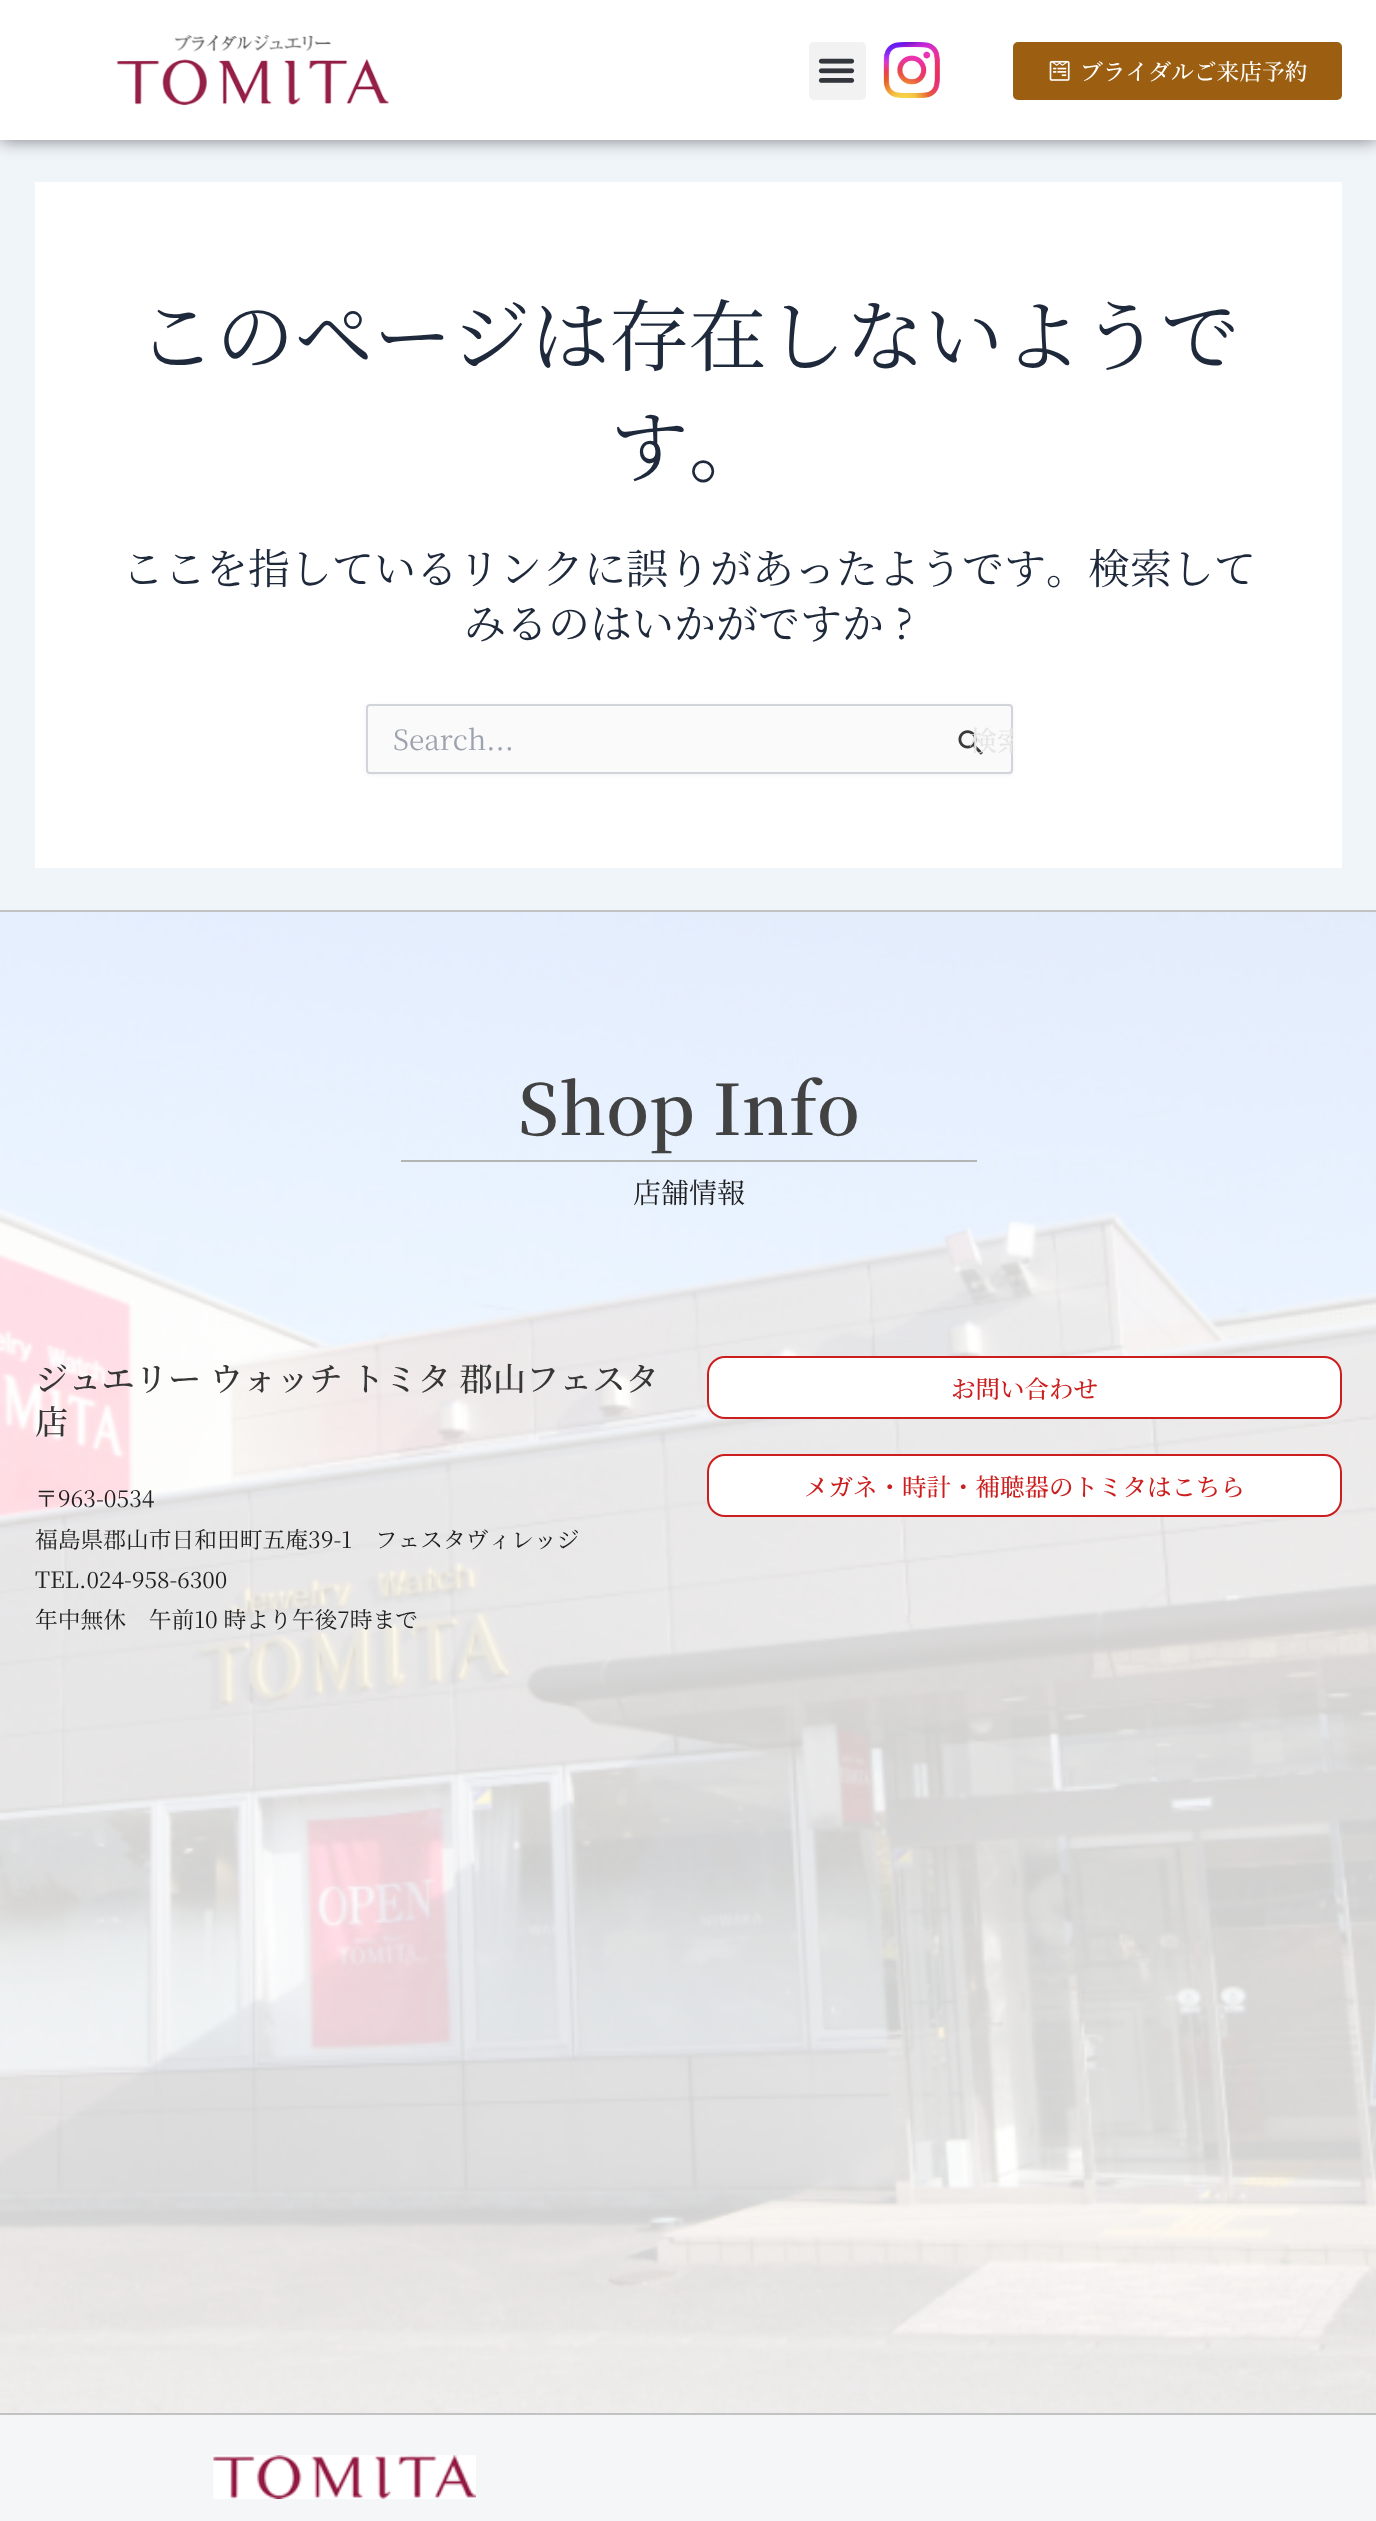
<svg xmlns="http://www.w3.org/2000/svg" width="1376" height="2521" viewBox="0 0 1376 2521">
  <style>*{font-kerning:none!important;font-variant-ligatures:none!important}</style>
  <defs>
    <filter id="blur1" x="-50%" y="-200%" width="200%" height="500%"><feGaussianBlur stdDeviation="9"/></filter>
    <filter id="blur2" x="-50%" y="-200%" width="200%" height="500%"><feGaussianBlur stdDeviation="2"/></filter>
    <clipPath id="clip1"><rect x="935" y="704" width="78" height="73" rx="4"/></clipPath>
  </defs>
  <rect width="100%" height="100%" fill="#f0f5fa"/>
  <rect x="0" y="0" width="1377" height="140" fill="#000000" fill-opacity="0.5" filter="url(#blur1)"/>
  <rect x="0" y="0" width="1376" height="140" fill="#ffffff"/>
  <image x="116" y="35" width="273" height="70" href="img1.png"/>
  <rect x="809" y="42" width="57" height="58" rx="5" fill="#f2f2f2"/>
  <image x="818" y="58" width="37" height="25" href="img2.png"/>
  <image x="883" y="42" width="57" height="56" href="img3.png"/>
  <rect x="1013" y="42" width="329" height="58" rx="5" fill="#9c5f11"/>
  <image x="1049" y="60" width="21" height="21" href="img4.png"/>
  <text x="1080" y="80" font-family="Noto Serif JP" font-size="22.75" font-weight="500" fill="#ffffff">ブライダルご来店予約</text>
  <rect x="35" y="182" width="1307" height="686" fill="#ffffff"/>
  <text x="137" y="365" font-family="Noto Serif JP" font-size="78.75" fill="#1e293b">このページは存在しないようで</text>
  <text x="610" y="476" font-family="Noto Serif JP" font-size="78.75" fill="#1e293b">す。</text>
  <text x="122" y="584" font-family="Noto Serif JP" font-size="42" fill="#1e293b">ここを指しているリンクに誤りがあったようです。検索して</text>
  <text x="464" y="639" font-family="Noto Serif JP" font-size="42" fill="#1e293b">みるのはいかがですか ?</text>
  <rect x="366" y="705" width="647" height="70" rx="4" fill="#000000" fill-opacity="0.05" filter="url(#blur2)"/>
  <rect x="367" y="705" width="645" height="68" rx="3" fill="#fafafa" stroke="#d1d5db" stroke-width="2"/>
  <text x="393" y="750" font-family="Noto Serif JP" font-size="28" fill="#9ca3af">Search...</text>
  <image x="958" y="730" width="25" height="25" href="img5.png"/>
  <g clip-path="url(#clip1)">
    <text x="969" y="751" font-family="Noto Serif JP" font-size="28" font-weight="500" fill="#e6e6e6">検索</text>
  </g>
  <image x="0" y="912" width="1376" height="1501" href="img6.png"/>
  <rect x="0" y="910" width="1376" height="2" fill="#c2c2c2"/>
  <rect x="0" y="2413" width="1376" height="2" fill="#c2c2c2"/>
  <text x="518" y="1135" font-family="Noto Serif JP" font-size="70" font-weight="600" fill="#424242">Shop Info</text>
  <rect x="401" y="1160" width="576" height="2" fill="#b4b4b4"/>
  <text x="633" y="1203" font-family="Noto Serif JP" font-size="28" fill="#1e1e1e">店舗情報</text>
  <text x="35" y="1391" font-family="Noto Serif JP" font-size="33.25" font-weight="500" fill="#363636">ジュエリー ウォッチ トミタ 郡山フェスタ</text>
  <text x="35" y="1434" font-family="Noto Serif JP" font-size="33.25" font-weight="500" fill="#363636">店</text>
  <text x="35" y="1507" font-family="Noto Serif JP" font-size="22.75" fill="#1e1e1e">〒963-0534</text>
  <text x="35" y="1548" font-family="Noto Serif JP" font-size="22.75" fill="#1e1e1e">福島県郡山市日和田町五庵39-1　フェスタヴィレッジ</text>
  <text x="35" y="1588" font-family="Noto Serif JP" font-size="22.75" fill="#1e1e1e">TEL.024-958-6300</text>
  <text x="35" y="1628" font-family="Noto Serif JP" font-size="22.75" fill="#1e1e1e">年中無休　午前10 時より午後7時まで</text>
  <rect x="708" y="1357" width="633" height="61" rx="17" fill="#ffffff" stroke="#cc1e1e" stroke-width="2"/>
  <text x="951" y="1398" font-family="Noto Serif JP" font-size="24.5" font-weight="500" fill="#cc1e1e">お問い合わせ</text>
  <rect x="708" y="1455" width="633" height="61" rx="17" fill="#ffffff" stroke="#cc1e1e" stroke-width="2"/>
  <text x="804" y="1496" font-family="Noto Serif JP" font-size="24.5" font-weight="500" fill="#cc1e1e">メガネ・時計・補聴器のトミタはこちら</text>
  <rect x="0" y="2415" width="1376" height="106" fill="#f4f6f8"/>
  <image x="213" y="2455" width="263" height="44" href="img7.png"/>
</svg>
